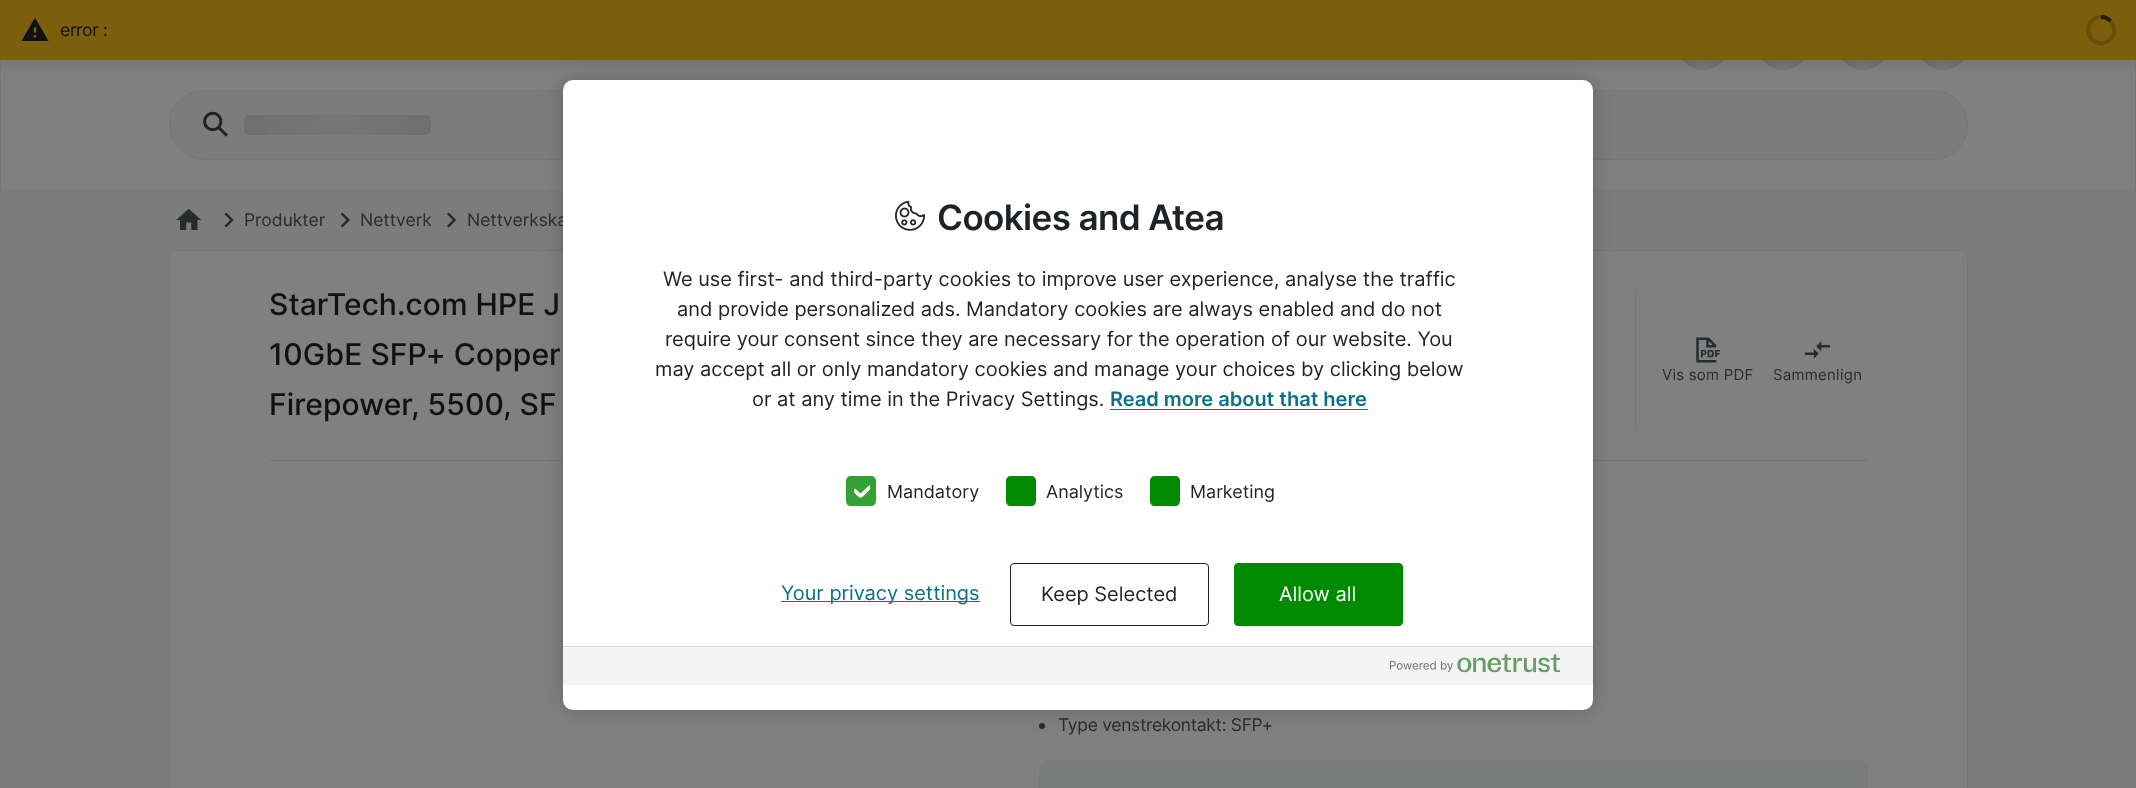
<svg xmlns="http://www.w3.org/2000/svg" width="2136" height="788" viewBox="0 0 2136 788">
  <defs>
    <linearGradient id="g1" gradientUnits="userSpaceOnUse" x1="1678" y1="45" x2="1728" y2="45"><stop offset="0" stop-color="#777777" stop-opacity="0"/><stop offset="0.5" stop-color="#777777"/><stop offset="1" stop-color="#777777" stop-opacity="0"/></linearGradient>
    <linearGradient id="g2" gradientUnits="userSpaceOnUse" x1="1758" y1="45" x2="1808" y2="45"><stop offset="0" stop-color="#777777" stop-opacity="0"/><stop offset="0.5" stop-color="#777777"/><stop offset="1" stop-color="#777777" stop-opacity="0"/></linearGradient>
    <linearGradient id="g3" gradientUnits="userSpaceOnUse" x1="1838" y1="45" x2="1888" y2="45"><stop offset="0" stop-color="#777777" stop-opacity="0"/><stop offset="0.5" stop-color="#777777"/><stop offset="1" stop-color="#777777" stop-opacity="0"/></linearGradient>
    <linearGradient id="g4" gradientUnits="userSpaceOnUse" x1="1918" y1="45" x2="1968" y2="45"><stop offset="0" stop-color="#777777" stop-opacity="0"/><stop offset="0.5" stop-color="#777777"/><stop offset="1" stop-color="#777777" stop-opacity="0"/></linearGradient>
    <filter id="blur1" x="-50%" y="-200%" width="200%" height="500%"><feGaussianBlur stdDeviation="5"/></filter>
    <clipPath id="clip1"><rect x="269" y="460" width="1599" height="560"/></clipPath>
    <filter id="blur2" x="-50%" y="-200%" width="200%" height="500%"><feGaussianBlur stdDeviation="11"/></filter>
    <linearGradient id="g5" gradientUnits="userSpaceOnUse" x1="244" y1="125" x2="431" y2="125"><stop offset="0" stop-color="#777777" stop-opacity="0"/><stop offset="0.5" stop-color="#777777"/><stop offset="1" stop-color="#777777" stop-opacity="0"/></linearGradient>
  </defs>
  <rect width="100%" height="100%" fill="#7c7c7c"/>
  <rect x="2135" y="60" width="1" height="130" fill="#777777"/>
  <rect x="0" y="60" width="1" height="130" fill="#777777"/>
  <rect x="1" y="60" width="2134" height="130" fill="#808080"/>
  <circle cx="1703" cy="45" r="25" fill="#6e6f70"/>
  <circle cx="1703" cy="45" r="25" fill="url(#g1)"/>
  <circle cx="1783" cy="45" r="25" fill="#6e6f70"/>
  <circle cx="1783" cy="45" r="25" fill="url(#g2)"/>
  <circle cx="1863" cy="45" r="25" fill="#6e6f70"/>
  <circle cx="1863" cy="45" r="25" fill="url(#g3)"/>
  <circle cx="1943" cy="45" r="25" fill="#6e6f70"/>
  <circle cx="1943" cy="45" r="25" fill="url(#g4)"/>
  <rect x="0" y="5" width="2136" height="60" fill="#000000" fill-opacity="0.1" filter="url(#blur1)"/>
  <rect x="0" y="0" width="2136" height="60" fill="#7b5f0c"/>
  <image x="21" y="18" width="28" height="23" href="img1.png"/>
  <text x="60" y="36" font-family="Inter" font-size="17.5" letter-spacing="-0.3" fill="#0f1112">error :</text>
  <path d="M2101 17C2118.5 17 2118.5 43 2101 43C2084 43 2084 17 2101 17" fill="none" stroke="#664f0d" stroke-width="3.8"/>
  <path d="M2101 17C2105 17 2108 18.5 2110.5 21" fill="none" stroke="#0f1112" stroke-opacity="0.8" stroke-width="3.8"/>
  <rect x="169.5" y="90.5" width="1798" height="69" rx="34.5" fill="#7c7c7c" stroke="#777777"/>
  <rect x="169.5" y="250.5" width="1798" height="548" rx="9.5" fill="#808080" stroke="#777777"/>
  <g clip-path="url(#clip1)">
    <path d="M145 336H1991V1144H145ZM269 461H1868V462V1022H269H268V462Z" fill="#777777" fill-rule="evenodd"/>
  </g>
  <circle cx="1042" cy="726" r="3" fill="#272c2f"/>
  <rect x="563" y="80" width="1030" height="630" rx="10" fill="#000000" fill-opacity="0.2" filter="url(#blur2)"/>
  <text x="467" y="226" font-family="Inter" font-size="17.5" fill="#272c2f">Nettverkska</text>
  <rect x="563" y="80" width="1030" height="630" rx="10" fill="#ffffff"/>
  <image x="895" y="200" width="30" height="31" href="img2.png"/>
  <text x="937" y="230" font-family="Inter" font-size="35" font-weight="600" letter-spacing="-0.6" fill="#1f2326">Cookies and Atea</text>
  <text x="663" y="286" font-family="Inter" font-size="20" fill="#1f2326">We use first- and third-party cookies to improve user experience, analyse the traffic</text>
  <text x="677" y="316" font-family="Inter" font-size="20" fill="#1f2326">and provide personalized ads. Mandatory cookies are always enabled and do not</text>
  <text x="665" y="346" font-family="Inter" font-size="20" fill="#1f2326">require your consent since they are necessary for the operation of our website. You</text>
  <text x="655" y="376" font-family="Inter" font-size="20" fill="#1f2326">may accept all or only mandatory cookies and manage your choices by clicking below</text>
  <text x="752" y="406" font-family="Inter" font-size="20" fill="#1f2326">or at any time in the Privacy Settings.</text>
  <text x="1110" y="406" font-family="Inter" font-size="20" font-weight="600" fill="#097288">Read more about that here</text>
  <rect x="1110" y="409" width="258" height="1" fill="#097288"/>
  <path d="M851 476H871C874 476 876 478 876 481V501C876 504 874 506 871 506H851C848 506 846 504 846 501V481C846 478 848 476 851 476Z" fill="#33a133"/>
  <path d="M855 488.5L861.5 482C863 480.5 865 480.5 866.5 482L869.5 485C870.5 486.5 870.5 488.5 869.5 490L863 496.5C861.5 498 859.5 498 858 496.5L855 493.5C853.5 492 853.5 490 855 488.5ZM855 488.5L861.5 482C863 480.5 865 480.5 866.5 482L869.5 485L860.5 493.5Z" fill="#ffffff" fill-rule="evenodd"/>
  <text x="887" y="498" font-family="Inter" font-size="18" fill="#1f2326">Mandatory</text>
  <path d="M1011 476H1031C1034 476 1036 478 1036 481V501C1036 504 1034 506 1031 506H1011C1008 506 1006 504 1006 501V481C1006 478 1008 476 1011 476Z" fill="#008a00"/>
  <text x="1046" y="498" font-family="Inter" font-size="18" fill="#1f2326">Analytics</text>
  <path d="M1155 476H1175C1178 476 1180 478 1180 481V501C1180 504 1178 506 1175 506H1155C1152 506 1150 504 1150 501V481C1150 478 1152 476 1155 476Z" fill="#008a00"/>
  <text x="1190" y="498" font-family="Inter" font-size="18" fill="#1f2326">Marketing</text>
  <rect x="781" y="601" width="199" height="1" fill="#097288"/>
  <text x="781" y="600" font-family="Inter" font-size="20" fill="#097288">Your privacy settings</text>
  <rect x="1010.5" y="563.5" width="198" height="62" rx="3.5" fill="none" stroke="#1f2325"/>
  <text x="1041" y="601" font-family="Inter" font-size="20" fill="#1f2326">Keep Selected</text>
  <rect x="1234.5" y="563.5" width="168" height="62" rx="3.5" fill="#008a00" stroke="#008a00"/>
  <text x="1279" y="601" font-family="Inter" font-size="20" fill="#ffffff">Allow all</text>
  <rect x="563" y="647" width="1030" height="38" fill="#f4f4f4"/>
  <rect x="563" y="646" width="1030" height="1" fill="#d8d8d8"/>
  <image x="1390" y="654" width="170" height="19" href="img3.png"/>
  <image x="203" y="111" width="25" height="26" href="img4.png"/>
  <rect x="244" y="115" width="187" height="20" rx="5" fill="#6e6f70"/>
  <rect x="266" y="115" width="143" height="20" fill="url(#g5)"/>
  <image x="176" y="208" width="25" height="22" href="img5.png"/>
  <image x="224" y="212" width="10" height="16" href="img6.png"/>
  <text x="244" y="226" font-family="Inter" font-size="17.5" fill="#272c2f">Produkter</text>
  <image x="340" y="212" width="10" height="16" href="img7.png"/>
  <text x="360" y="226" font-family="Inter" font-size="17.5" fill="#272c2f">Nettverk</text>
  <image x="447" y="212" width="9" height="16" href="img8.png"/>
  <text x="269" y="315" font-family="Inter" font-size="30" font-weight="500" letter-spacing="0.1" fill="#0f1112">StarTech.com HPE J</text>
  <text x="269" y="365" font-family="Inter" font-size="30" font-weight="500" letter-spacing="0.1" fill="#0f1112">10GbE SFP+ Copper</text>
  <text x="269" y="415" font-family="Inter" font-size="30" font-weight="500" letter-spacing="0.1" fill="#0f1112">Firepower, 5500, SF</text>
  <rect x="1635" y="290" width="1" height="140" fill="#777777"/>
  <image x="1696" y="337" width="24" height="26" href="img9.png"/>
  <text x="1662" y="380" font-family="Inter" font-size="15" letter-spacing="0.25" fill="#272c2f">Vis som PDF</text>
  <image x="1805" y="341" width="25" height="18" href="img10.png"/>
  <text x="1773" y="380" font-family="Inter" font-size="15" letter-spacing="0.25" fill="#272c2f">Sammenlign</text>
  <text x="1058" y="731" font-family="Inter" font-size="17.5" letter-spacing="-0.3" fill="#272c2f">Type venstrekontakt: SFP+</text>
  <rect x="1039.5" y="760.5" width="828" height="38" rx="9.5" fill="#7b7d7d" stroke="#777b7c"/>
</svg>
